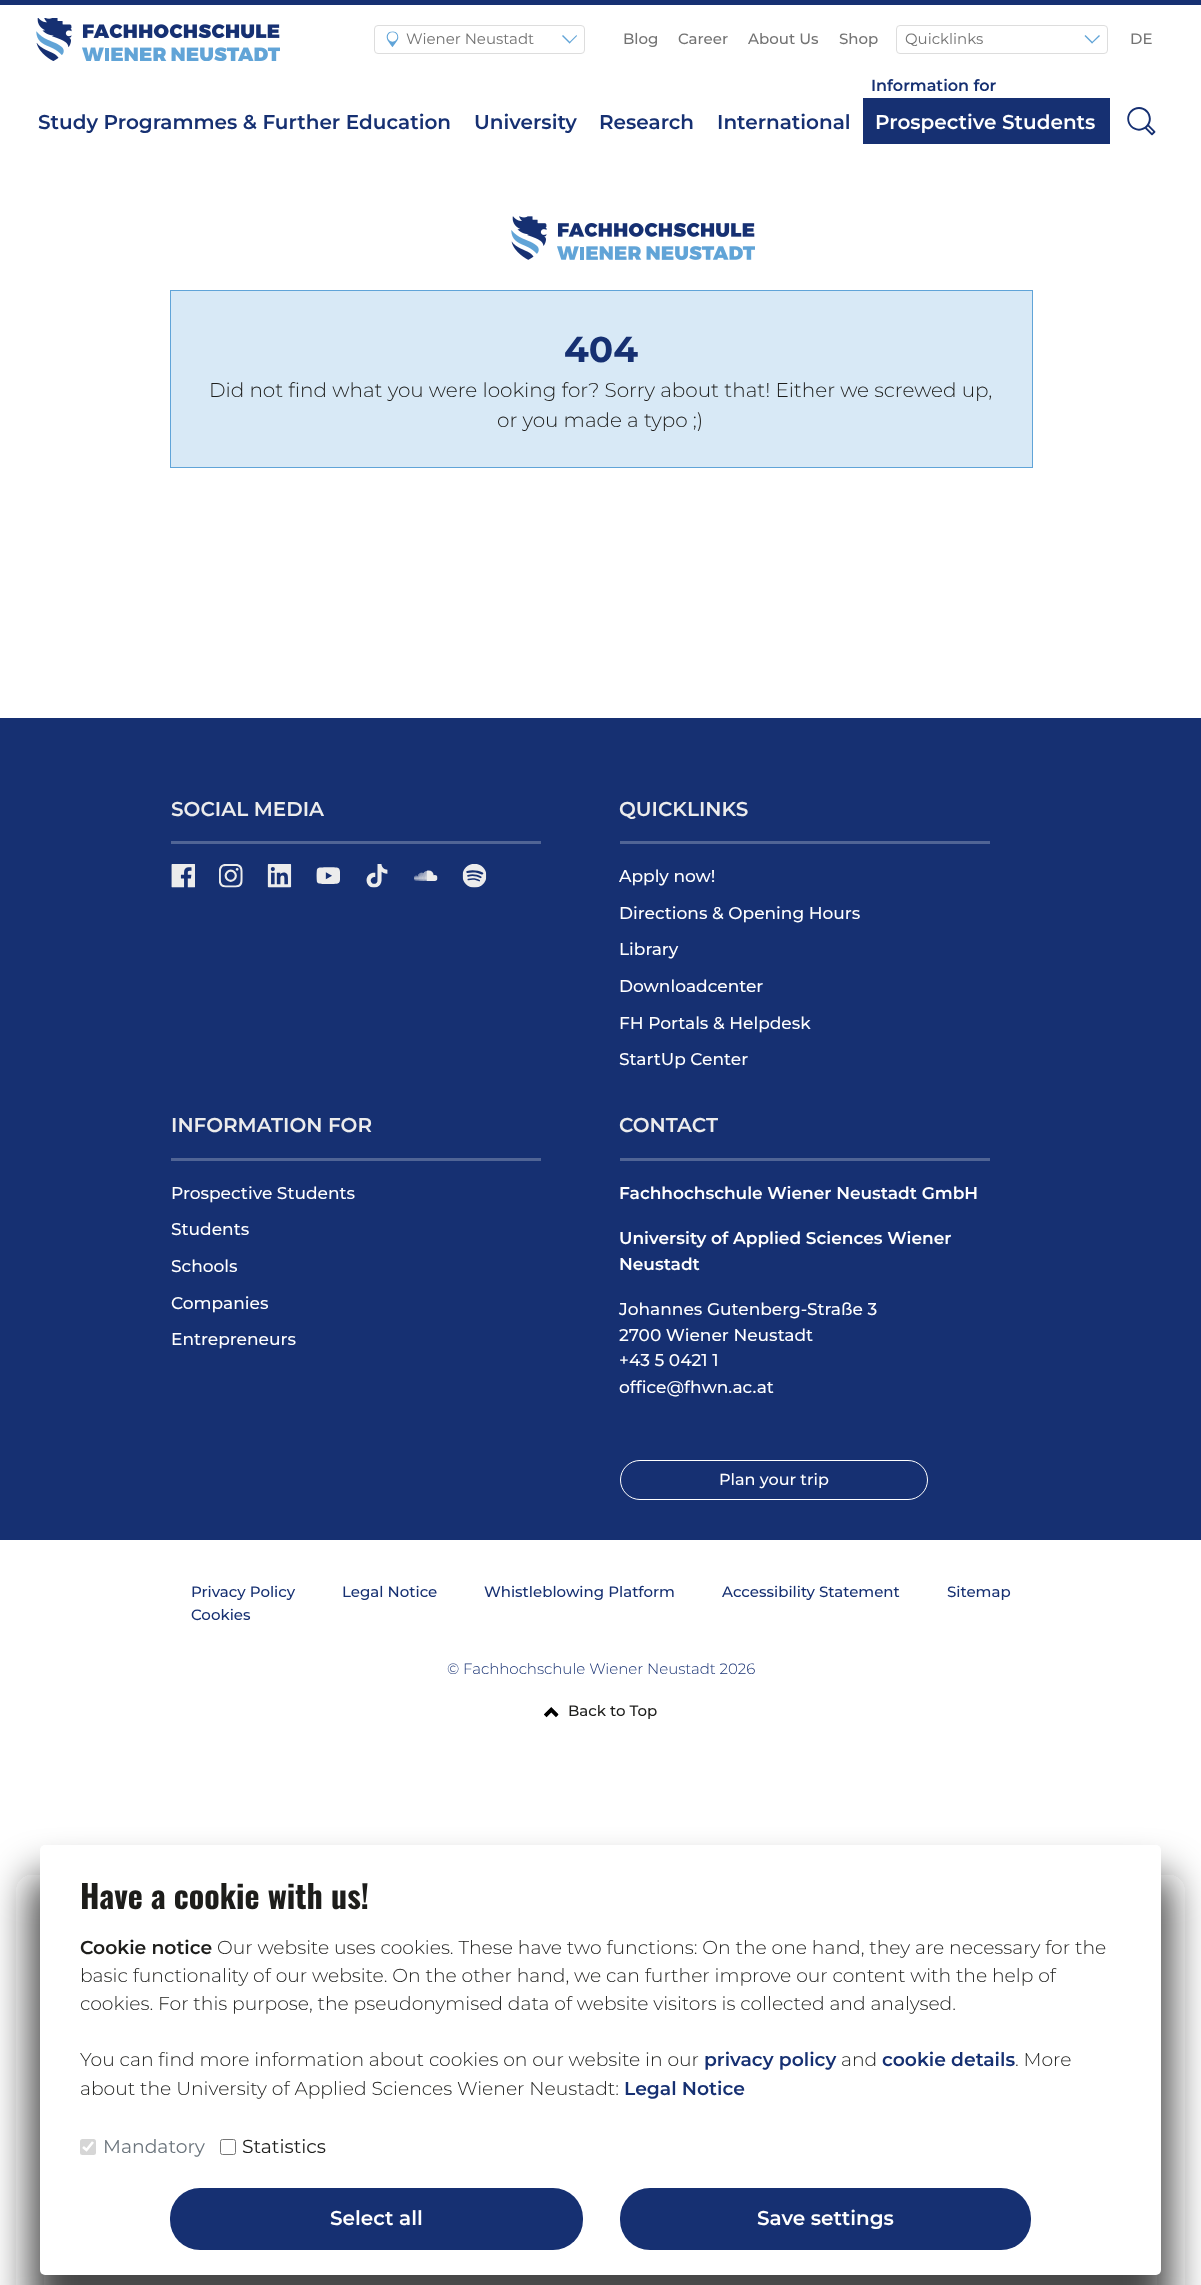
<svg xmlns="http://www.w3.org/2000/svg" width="1201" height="2285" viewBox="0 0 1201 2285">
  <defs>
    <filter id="blur1" x="-50%" y="-200%" width="200%" height="500%"><feGaussianBlur stdDeviation="20"/></filter>
  </defs>
  <rect width="100%" height="100%" fill="#ffffff"/>
  <rect x="0" y="0" width="1201" height="5" fill="#163072"/>
  <image x="36" y="18" width="244" height="43" href="img1.png"/>
  <rect x="374.5" y="25.5" width="210" height="28" rx="3.5" fill="none" stroke="#dddddd"/>
  <image x="386" y="31" width="13" height="16" href="img2.png"/>
  <text x="406" y="44" font-family="Montserrat" font-size="15" fill="#737373">Wiener Neustadt</text>
  <path d="M576.5 35L577 36L569.5 43.5L569 42.5Z" fill="#61a4d7"/>
  <path d="M563 35L570.5 42.5L569.5 43.5L562 36Z" fill="#61a4d7"/>
  <text x="623" y="44" font-family="Montserrat" font-size="15" font-weight="500" fill="#737373">Blog</text>
  <text x="678" y="44" font-family="Montserrat" font-size="15" font-weight="500" fill="#737373">Career</text>
  <text x="748" y="44" font-family="Montserrat" font-size="15" font-weight="500" fill="#737373">About Us</text>
  <text x="839" y="44" font-family="Montserrat" font-size="15" font-weight="500" fill="#737373">Shop</text>
  <rect x="896.5" y="25.5" width="211" height="28" rx="3.5" fill="none" stroke="#dddddd"/>
  <text x="905" y="44" font-family="Montserrat" font-size="15" fill="#737373">Quicklinks</text>
  <path d="M1099 35L1100 36L1092 43.5L1091.5 42.5Z" fill="#61a4d7"/>
  <path d="M1085.5 35L1093 42.5L1092 43.5L1084.5 36Z" fill="#61a4d7"/>
  <text x="1130" y="44" font-family="Montserrat" font-size="15" font-weight="500" fill="#737373">DE</text>
  <text x="38" y="129" font-family="Montserrat" font-size="20" font-weight="600" fill="#163072">Study Programmes &amp; Further Education</text>
  <text x="474" y="129" font-family="Montserrat" font-size="20" font-weight="600" fill="#163072">University</text>
  <text x="599" y="129" font-family="Montserrat" font-size="20" font-weight="600" fill="#163072">Research</text>
  <text x="717" y="129" font-family="Montserrat" font-size="20" font-weight="600" fill="#163072">International</text>
  <rect x="863" y="98" width="247" height="46" fill="#163072"/>
  <text x="871" y="91" font-family="Montserrat" font-size="16" font-weight="600" fill="#163072">Information for</text>
  <text x="875" y="129" font-family="Montserrat" font-size="20" font-weight="600" fill="#ffffff">Prospective Students</text>
  <image x="1127" y="107" width="29" height="29" href="img3.png"/>
  <image x="511" y="216" width="244" height="44" href="img4.png"/>
  <rect x="170.5" y="290.5" width="862" height="177" fill="#d8e9f6" stroke="#60a4d8"/>
  <text x="564" y="362" font-family="Montserrat" font-size="36" font-weight="bold" fill="#163072">404</text>
  <text x="209" y="397" font-family="Montserrat" font-size="20" font-weight="300" fill="#1d1d1b">Did not find what you were looking for? Sorry about that! Either we screwed up,</text>
  <text x="497" y="427" font-family="Montserrat" font-size="20" font-weight="300" fill="#1d1d1b">or you made a typo ;)</text>
  <rect x="0" y="718" width="1201" height="822" fill="#163072"/>
  <text x="171" y="816" font-family="Montserrat" font-size="20" font-weight="600" fill="#ececec">SOCIAL MEDIA</text>
  <rect x="171" y="841" width="370" height="3" fill="#506495"/>
  <image x="171" y="864" width="24" height="24" href="img5.png"/>
  <image x="219" y="864" width="24" height="24" href="img6.png"/>
  <image x="267" y="864" width="25" height="24" href="img7.png"/>
  <image x="316" y="867" width="24" height="17" href="img8.png"/>
  <image x="366" y="864" width="22" height="24" href="img9.png"/>
  <image x="414" y="870" width="24" height="11" href="img10.png"/>
  <image x="462" y="864" width="25" height="24" href="img11.png"/>
  <text x="619" y="816" font-family="Montserrat" font-size="20" font-weight="600" fill="#ececec">QUICKLINKS</text>
  <rect x="620" y="841" width="370" height="3" fill="#506495"/>
  <text x="619" y="882" font-family="Montserrat" font-size="17" font-weight="500" fill="#ffffff">Apply now!</text>
  <text x="619" y="919" font-family="Montserrat" font-size="17" font-weight="500" fill="#ffffff">Directions &amp; Opening Hours</text>
  <text x="619" y="955" font-family="Montserrat" font-size="17" font-weight="500" fill="#ffffff">Library</text>
  <text x="619" y="992" font-family="Montserrat" font-size="17" font-weight="500" fill="#ffffff">Downloadcenter</text>
  <text x="619" y="1029" font-family="Montserrat" font-size="17" font-weight="500" fill="#ffffff">FH Portals &amp; Helpdesk</text>
  <text x="619" y="1065" font-family="Montserrat" font-size="17" font-weight="500" fill="#ffffff">StartUp Center</text>
  <text x="171" y="1132" font-family="Montserrat" font-size="20" font-weight="600" fill="#ececec">INFORMATION FOR</text>
  <rect x="171" y="1158" width="370" height="3" fill="#506495"/>
  <text x="171" y="1199" font-family="Montserrat" font-size="17" font-weight="500" fill="#ffffff">Prospective Students</text>
  <text x="171" y="1235" font-family="Montserrat" font-size="17" font-weight="500" fill="#ffffff">Students</text>
  <text x="171" y="1272" font-family="Montserrat" font-size="17" font-weight="500" fill="#ffffff">Schools</text>
  <text x="171" y="1309" font-family="Montserrat" font-size="17" font-weight="500" fill="#ffffff">Companies</text>
  <text x="171" y="1345" font-family="Montserrat" font-size="17" font-weight="500" fill="#ffffff">Entrepreneurs</text>
  <text x="619" y="1132" font-family="Montserrat" font-size="20" font-weight="600" fill="#ececec">CONTACT</text>
  <rect x="620" y="1158" width="370" height="3" fill="#506495"/>
  <text x="619" y="1199" font-family="Montserrat" font-size="17" font-weight="600" fill="#ffffff">Fachhochschule Wiener Neustadt GmbH</text>
  <text x="619" y="1244" font-family="Montserrat" font-size="17" font-weight="600" fill="#ffffff">University of Applied Sciences Wiener</text>
  <text x="619" y="1270" font-family="Montserrat" font-size="17" font-weight="600" fill="#ffffff">Neustadt</text>
  <text x="619" y="1315" font-family="Montserrat" font-size="17" font-weight="500" fill="#ffffff">Johannes Gutenberg-Straße 3</text>
  <text x="619" y="1341" font-family="Montserrat" font-size="17" font-weight="500" fill="#ffffff">2700 Wiener Neustadt</text>
  <text x="619" y="1366" font-family="Montserrat" font-size="17" font-weight="500" fill="#ffffff">+43 5 0421 1</text>
  <text x="619" y="1393" font-family="Montserrat" font-size="17" font-weight="500" fill="#ffffff">office@fhwn.ac.at</text>
  <rect x="620.5" y="1460.5" width="307" height="39" rx="19.5" fill="none" stroke="#ffffff"/>
  <text x="719" y="1485" font-family="Montserrat" font-size="16" font-weight="500" fill="#ffffff">Plan your trip</text>
  <text x="191" y="1597" font-family="Montserrat" font-size="15" font-weight="500" fill="#163072">Privacy Policy</text>
  <text x="342" y="1597" font-family="Montserrat" font-size="15" font-weight="500" fill="#163072">Legal Notice</text>
  <text x="484" y="1597" font-family="Montserrat" font-size="15" font-weight="500" fill="#163072">Whistleblowing Platform</text>
  <text x="722" y="1597" font-family="Montserrat" font-size="15" font-weight="500" fill="#163072">Accessibility Statement</text>
  <text x="947" y="1597" font-family="Montserrat" font-size="15" font-weight="500" fill="#163072">Sitemap</text>
  <text x="191" y="1620" font-family="Montserrat" font-size="15" font-weight="500" fill="#163072">Cookies</text>
  <text x="447" y="1674" font-family="Montserrat" font-size="15" font-weight="300" fill="#163072">© Fachhochschule Wiener Neustadt 2026</text>
  <image x="544" y="1707" width="15" height="11" href="img12.png"/>
  <text x="568" y="1716" font-family="Montserrat" font-size="15" font-weight="500" fill="#1d1d1b">Back to Top</text>
  <rect x="30" y="1875" width="1141" height="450" rx="15" fill="#1d1d1b" fill-opacity="0.8" filter="url(#blur1)"/>
  <rect x="40" y="1845" width="1121" height="430" rx="5" fill="#ffffff"/>
  <text x="80" y="1909" font-family="Oswald" font-size="32" font-weight="bold" fill="#1d1d1b">Have a cookie with us!</text>
  <text x="80" y="1954" font-family="Montserrat" font-size="18.75" font-weight="600" fill="#1d1d1b">Cookie notice</text>
  <text x="217" y="1954" font-family="Montserrat" font-size="18.75" font-weight="300" fill="#1d1d1b">Our website uses cookies. These have two functions: On the one hand, they are necessary for the</text>
  <text x="80" y="1982" font-family="Montserrat" font-size="18.75" font-weight="300" fill="#1d1d1b">basic functionality of our website. On the other hand, we can further improve our content with the help of</text>
  <text x="80" y="2010" font-family="Montserrat" font-size="18.75" font-weight="300" fill="#1d1d1b">cookies. For this purpose, the pseudonymised data of website visitors is collected and analysed.</text>
  <text x="80" y="2066" font-family="Montserrat" font-size="18.75" font-weight="300" fill="#1d1d1b">You can find more information about cookies on our website in our</text>
  <text x="704" y="2066" font-family="Montserrat" font-size="18.75" font-weight="600" fill="#163072">privacy policy</text>
  <text x="841" y="2066" font-family="Montserrat" font-size="18.75" font-weight="300" fill="#1d1d1b">and</text>
  <text x="882" y="2066" font-family="Montserrat" font-size="18.75" font-weight="600" fill="#163072">cookie details</text>
  <text x="1015" y="2066" font-family="Montserrat" font-size="18.75" font-weight="300" fill="#1d1d1b">. More</text>
  <text x="80" y="2095" font-family="Montserrat" font-size="18.75" font-weight="300" fill="#1d1d1b">about the University of Applied Sciences Wiener Neustadt:</text>
  <text x="624" y="2095" font-family="Montserrat" font-size="18.75" font-weight="600" fill="#163072">Legal Notice</text>
  <rect x="80" y="2139" width="16" height="16" rx="2.5" fill="#d6d6d6"/>
  <path d="M83 2147L86.5 2150L93 2142" fill="none" stroke="#ffffff" stroke-width="2.6"/>
  <text x="103" y="2153" font-family="Montserrat" font-size="18.75" fill="#6c757d">Mandatory</text>
  <rect x="220.5" y="2139.5" width="15" height="15" rx="2" fill="none" stroke="#767676"/>
  <text x="242" y="2153" font-family="Montserrat" font-size="18.75" fill="#1d1d1b">Statistics</text>
  <rect x="170" y="2188" width="413" height="62" rx="30" fill="#163072"/>
  <text x="330" y="2225" font-family="Montserrat" font-size="20" font-weight="600" fill="#ffffff">Select all</text>
  <rect x="620" y="2188" width="411" height="62" rx="30" fill="#163072"/>
  <text x="757" y="2225" font-family="Montserrat" font-size="20" font-weight="600" fill="#ffffff">Save settings</text>
</svg>
